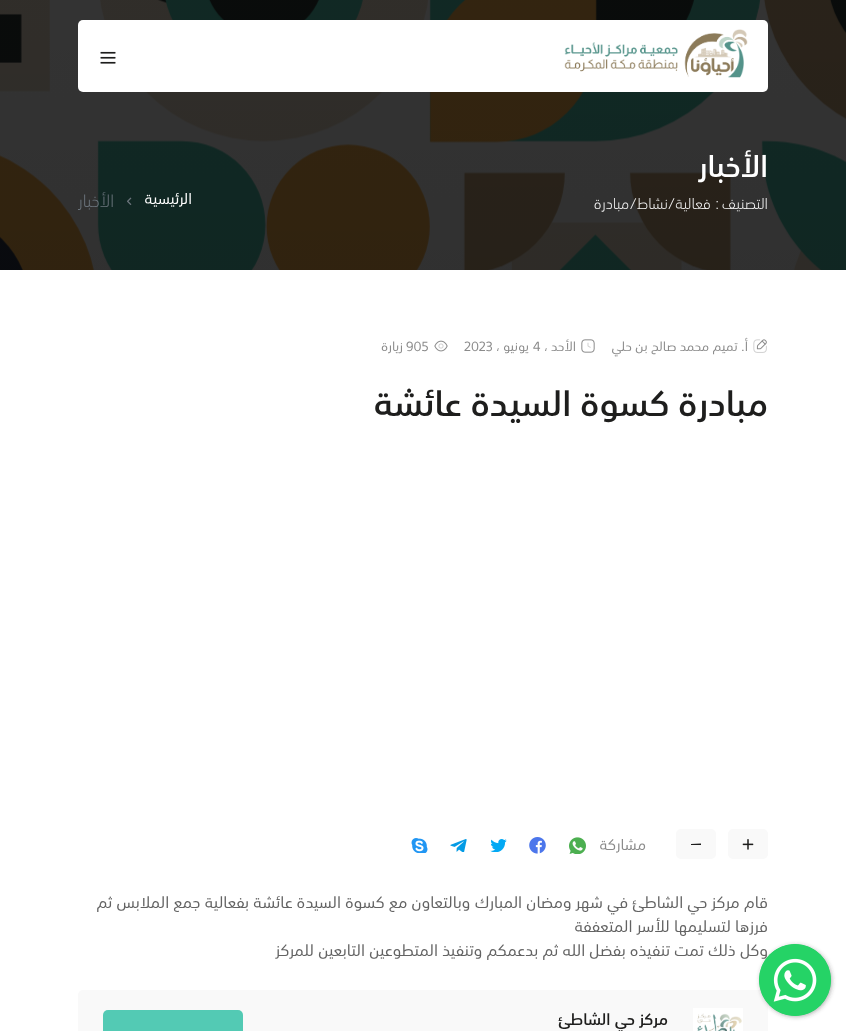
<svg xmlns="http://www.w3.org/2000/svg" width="846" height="1031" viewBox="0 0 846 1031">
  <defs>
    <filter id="blur1" x="-50%" y="-200%" width="200%" height="500%"><feGaussianBlur stdDeviation="2"/></filter>
    <linearGradient id="g1" gradientUnits="userSpaceOnUse" x1="423" y1="0" x2="423" y2="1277"><stop offset="0" stop-color="#000000" stop-opacity="0.8"/><stop offset="1" stop-color="#000000" stop-opacity="0.85"/></linearGradient>
  </defs>
  <rect width="100%" height="100%" fill="#ffffff"/>
  <rect x="78" y="990" width="690" height="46" rx="5" fill="#f9f9f9"/>
  <rect x="760" y="945" width="72" height="72" rx="36" fill="#3c3c3c" fill-opacity="0.4" filter="url(#blur1)"/>
  <text x="768" y="956" font-family="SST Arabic" font-size="16" direction="rtl" fill="#636363">وكل ذلك تمت تنفيذه بفضل الله ثم بدعمكم وتنفيذ المتطوعين التابعين للمركز</text>
  <circle cx="795" cy="980" r="36" fill="#25d366"/>
  <image x="759" y="944" width="72" height="72" href="img1.png"/>
  <image x="0" y="0" width="846" height="270" href="img4.png"/>
  <rect x="0" y="0" width="846" height="270" fill="url(#g1)"/>
  <rect x="78" y="20" width="690" height="72" rx="5" fill="#ffffff"/>
  <image x="564" y="29" width="184" height="49" href="img2.png"/>
  <image x="100" y="51" width="16" height="13" href="img3.png"/>
  <text x="768" y="177" font-family="SST Arabic" font-size="30" font-weight="500" direction="rtl" fill="#ffffff">الأخبار</text>
  <text x="768" y="209" font-family="SST Arabic" font-size="15" font-weight="300" direction="rtl" fill="#f9f9f9">التصنيف : فعالية/نشاط/مبادرة</text>
  <text x="192" y="204" font-family="SST Arabic" font-size="15" direction="rtl" fill="#ffffff">الرئيسية</text>
  <image x="127" y="197" width="5" height="8" href="img5.png"/>
  <text x="114" y="207" font-family="SST Arabic" font-size="17" font-weight="300" direction="rtl" fill="#6c757d">الأخبار</text>
  <image x="753" y="339" width="14" height="14" href="img6.png"/>
  <text x="748" y="351" font-family="SST Arabic" font-size="13" direction="rtl" fill="#8b8b8b">أ. تميم محمد صالح بن حلي</text>
  <image x="581" y="339" width="14" height="14" href="img7.png"/>
  <text x="576" y="351" font-family="SST Arabic" font-size="13" direction="rtl" fill="#8b8b8b">الأحد ،</text>
  <text x="533" y="351" font-family="SST Arabic" font-size="13" fill="#8b8b8b">4</text>
  <text x="529" y="351" font-family="SST Arabic" font-size="13" direction="rtl" fill="#8b8b8b">يونيو ،</text>
  <text x="464" y="351" font-family="SST Arabic" font-size="13" fill="#8b8b8b">2023</text>
  <image x="434" y="340" width="14" height="12" href="img8.png"/>
  <text x="406" y="351" font-family="SST Arabic" font-size="13" fill="#8b8b8b">905</text>
  <text x="403" y="351" font-family="SST Arabic" font-size="13" direction="rtl" fill="#8b8b8b">زيارة</text>
  <text x="768" y="416" font-family="SST Arabic" font-size="35" font-weight="500" direction="rtl" fill="#1e1e1d">مبادرة كسوة السيدة عائشة</text>
  <rect x="728" y="829" width="40" height="30" rx="5" fill="#f9f9f9"/>
  <image x="742" y="839" width="12" height="11" href="img9.png"/>
  <rect x="676" y="829" width="40" height="30" rx="5" fill="#f9f9f9"/>
  <path d="M691 845V844L701 843.5V845Z" fill="#1e1e1d"/>
  <text x="646" y="850" font-family="SST Arabic" font-size="15" direction="rtl" fill="#8b8b8b">مشاركة</text>
  <image x="569" y="837" width="17" height="17" href="img10.png"/>
  <image x="529" y="837" width="17" height="17" href="img11.png"/>
  <image x="490" y="839" width="17" height="13" href="img12.png"/>
  <image x="450" y="839" width="17" height="13" href="img13.png"/>
  <image x="411" y="838" width="17" height="15" href="img14.png"/>
  <text x="768" y="908" font-family="SST Arabic" font-size="16" direction="rtl" fill="#636363">قام مركز حي الشاطئ في شهر ومضان المبارك وبالتعاون مع كسوة السيدة عائشة بفعالية جمع الملابس ثم</text>
  <text x="768" y="932" font-family="SST Arabic" font-size="16" direction="rtl" fill="#636363">فرزها لتسليمها للأسر المتعففة</text>
  <image x="693" y="1008" width="50" height="23" href="img15.png"/>
  <text x="668" y="1025" font-family="SST Arabic" font-size="16" font-weight="500" direction="rtl" fill="#1e1e1d">مركز حي الشاطئ</text>
  <rect x="103" y="1010" width="140" height="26" rx="5" fill="#53cab4"/>
</svg>
